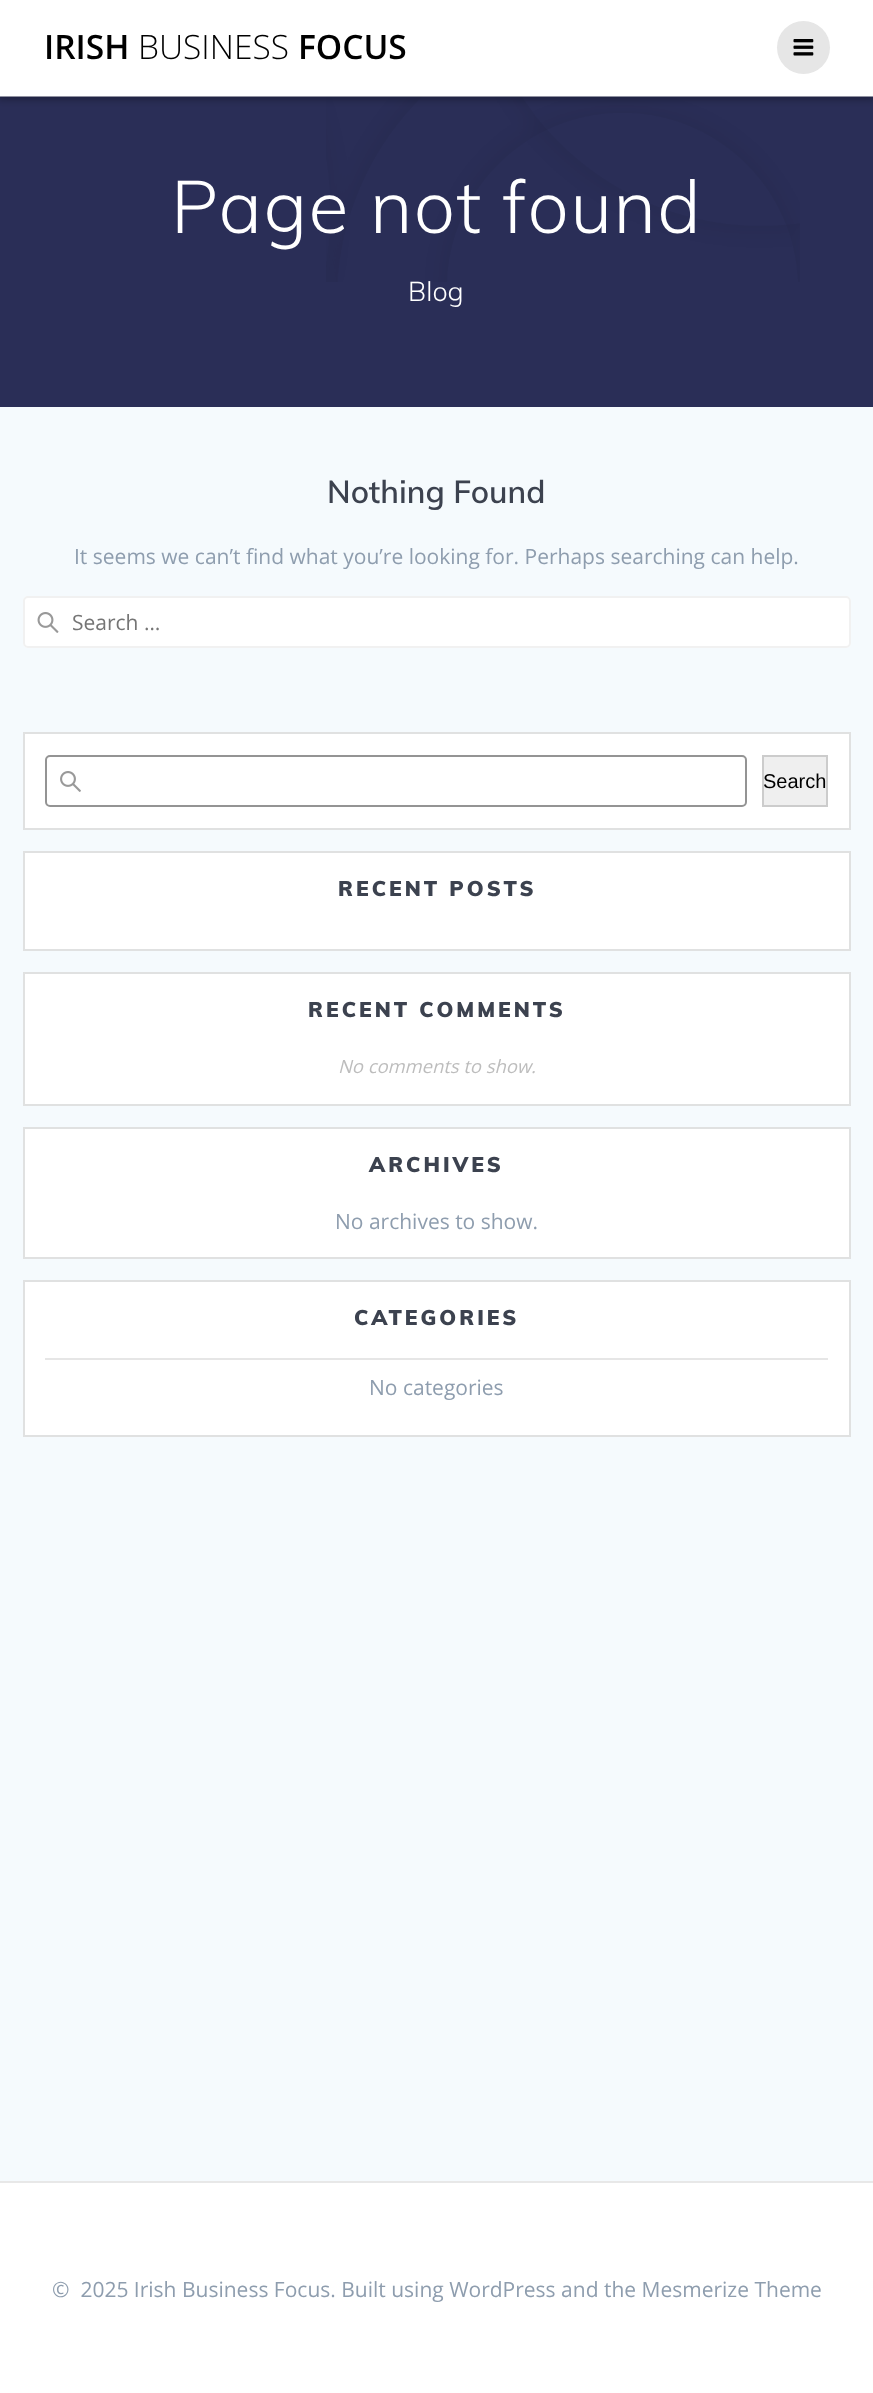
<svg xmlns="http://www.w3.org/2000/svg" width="873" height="2393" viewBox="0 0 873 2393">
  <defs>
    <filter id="blur1" x="-50%" y="-200%" width="200%" height="500%"><feGaussianBlur stdDeviation="4"/></filter>
  </defs>
  <rect width="100%" height="100%" fill="#ffffff"/>
  <rect x="0" y="96" width="873" height="311" fill="#2a2e57"/>
  <image x="326" y="96" width="474" height="186" href="img2.png"/>
  <rect x="-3" y="-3" width="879" height="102" fill="#000000" fill-opacity="0.33" filter="url(#blur1)"/>
  <rect x="0" y="0" width="873" height="96" fill="#ffffff"/>
  <rect x="0" y="96" width="873" height="1" fill="#ffffff" fill-opacity="0.5"/>
  <text x="44" y="59" font-family="Open Sans" font-size="33.5" font-weight="600" fill="#000000">IRISH</text>
  <text x="138" y="59" font-family="Open Sans" font-size="33.5" font-weight="300" fill="#000000">BUSINESS</text>
  <text x="298" y="59" font-family="Open Sans" font-size="33.5" font-weight="600" fill="#000000">FOCUS</text>
  <circle cx="803.5" cy="47.5" r="26.5" fill="#e6e6e6"/>
  <image x="793" y="39" width="21" height="17" href="img1.png"/>
  <text x="171" y="233" font-family="Muli" font-size="73.5" font-weight="300" letter-spacing="1.4" fill="#ffffff">Page not found</text>
  <text x="408" y="301" font-family="Muli" font-size="27" font-weight="300" fill="#ffffff">Blog</text>
  <rect x="0" y="407" width="873" height="1774" fill="#f5fafd"/>
  <text x="327" y="503" font-family="Muli" font-size="31.5" font-weight="600" fill="#3c424f">Nothing Found</text>
  <text x="74" y="564" font-family="Open Sans" font-size="21" fill="#8e9dae">It seems we can’t find what you’re looking for. Perhaps searching can help.</text>
  <rect x="23" y="596" width="828" height="52" rx="5" fill="#ffffff"/>
  <image x="37" y="612" width="22" height="21" href="img3.png"/>
  <rect x="24" y="597" width="826" height="50" rx="4" fill="none" stroke="#f1f1f1" stroke-width="2"/>
  <text x="72" y="630" font-family="Open Sans" font-size="21" fill="#757575">Search …</text>
  <rect x="24" y="733" width="826" height="96" fill="#ffffff" stroke="#e0e1e1" stroke-width="2"/>
  <image x="60" y="771" width="21" height="21" href="img4.png"/>
  <rect x="46" y="756" width="700" height="50" rx="4" fill="none" stroke="#949494" stroke-width="2"/>
  <rect x="763" y="756" width="64" height="50" fill="#efefef" stroke="#cccccc" stroke-width="2"/>
  <text x="763" y="788" font-family="Liberation Sans" font-size="20" fill="#000000">Search</text>
  <rect x="24" y="852" width="826" height="98" fill="#ffffff" stroke="#e0e1e1" stroke-width="2"/>
  <text x="338" y="896" font-family="Muli" font-size="21" font-weight="900" letter-spacing="3" fill="#3c424f">RECENT POSTS</text>
  <rect x="24" y="973" width="826" height="132" fill="#ffffff" stroke="#e0e1e1" stroke-width="2"/>
  <text x="308" y="1017" font-family="Muli" font-size="21" font-weight="900" letter-spacing="3" fill="#3c424f">RECENT COMMENTS</text>
  <text x="338" y="1073" font-family="Open Sans" font-size="18.4" font-style="italic" fill="#bdbdbd">No comments to show.</text>
  <rect x="24" y="1128" width="826" height="130" fill="#ffffff" stroke="#e0e1e1" stroke-width="2"/>
  <text x="369" y="1172" font-family="Muli" font-size="21" font-weight="900" letter-spacing="3" fill="#3c424f">ARCHIVES</text>
  <text x="335" y="1229" font-family="Open Sans" font-size="21" fill="#8e9dae">No archives to show.</text>
  <rect x="24" y="1281" width="826" height="155" fill="#ffffff" stroke="#e0e1e1" stroke-width="2"/>
  <text x="354" y="1325" font-family="Muli" font-size="21" font-weight="900" letter-spacing="3" fill="#3c424f">CATEGORIES</text>
  <rect x="45" y="1358" width="783" height="2" fill="#e6e6e6"/>
  <text x="369" y="1395" font-family="Open Sans" font-size="21" fill="#8e9dae">No categories</text>
  <rect x="0" y="2181" width="873" height="2" fill="#e8e8e8"/>
  <text x="52" y="2297" font-family="Open Sans" font-size="21" fill="#8e9dae" xml:space="preserve">©  2025 Irish Business Focus. Built using WordPress and the Mesmerize Theme</text>
</svg>
